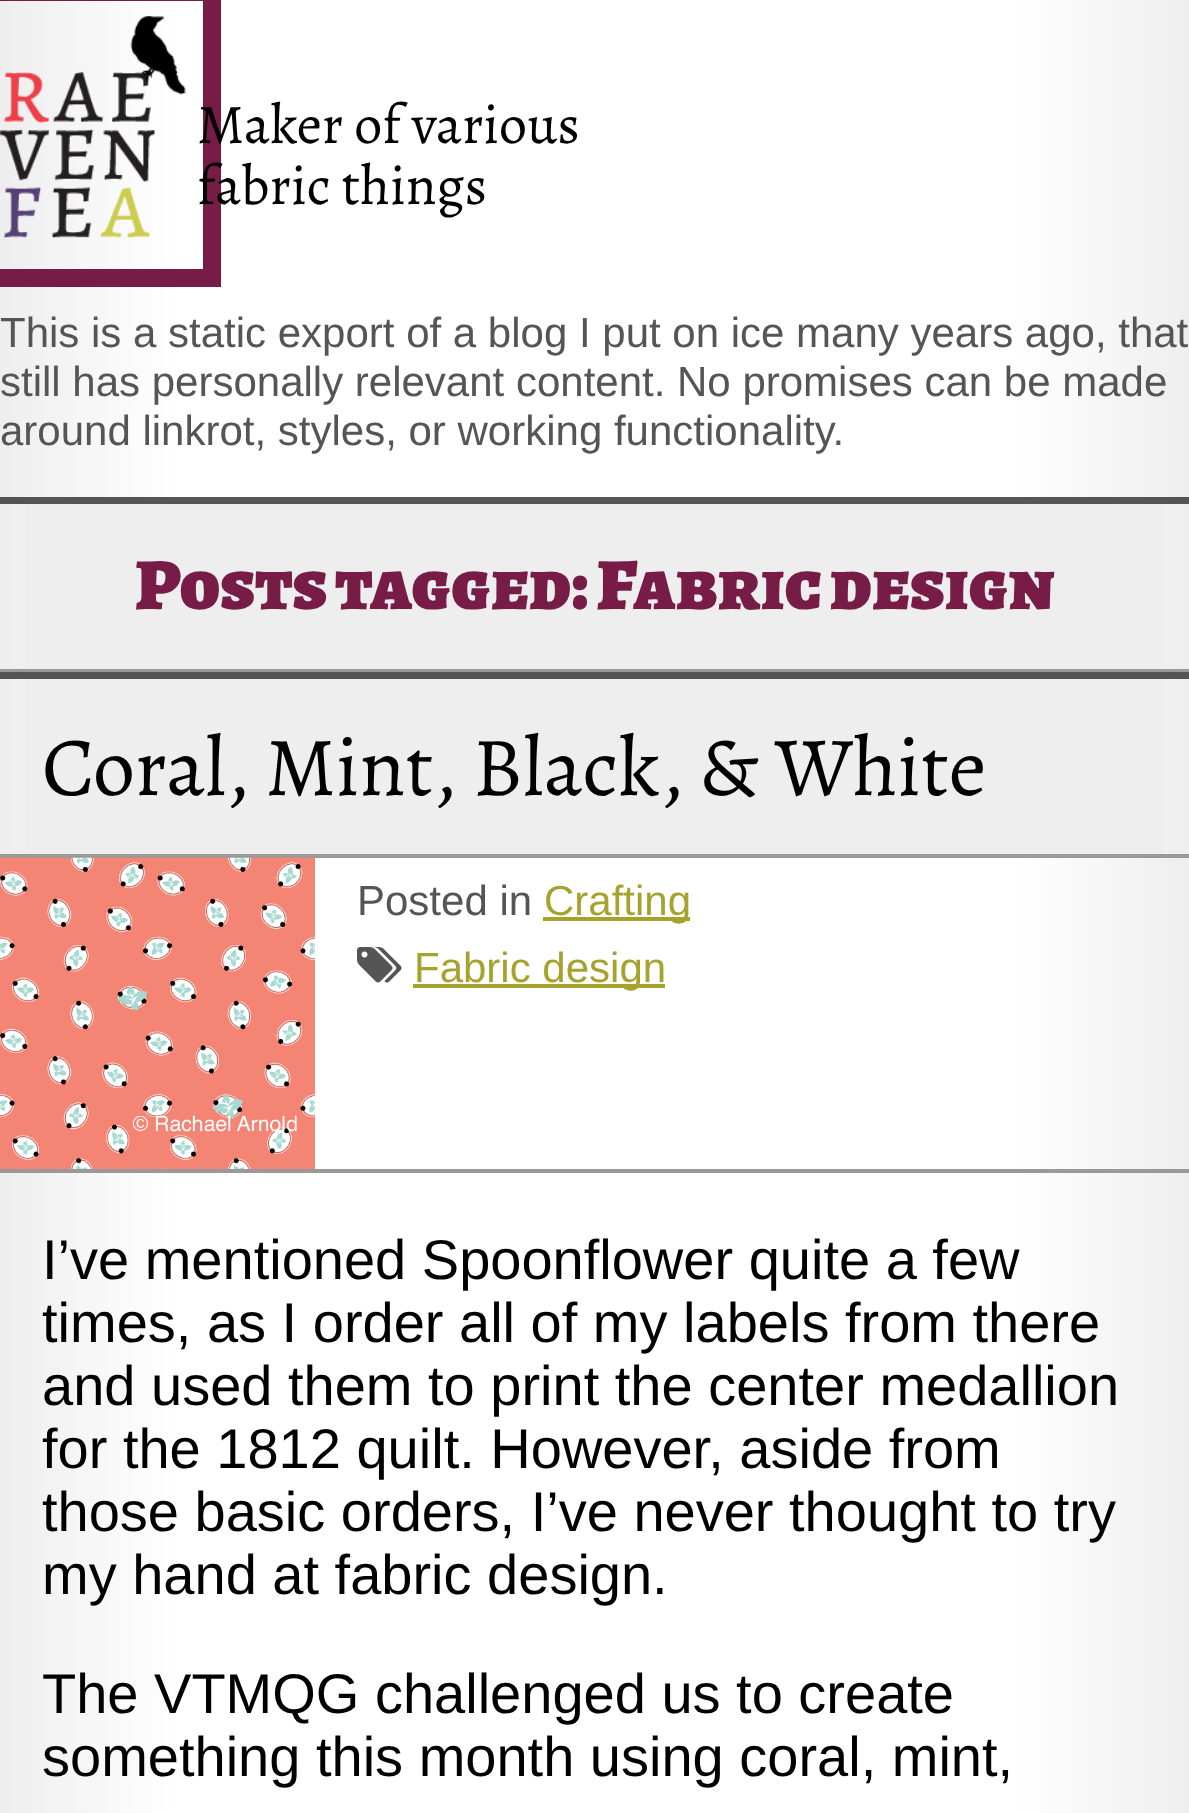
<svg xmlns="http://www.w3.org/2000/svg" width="1189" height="1813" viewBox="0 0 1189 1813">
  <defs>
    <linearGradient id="g1" gradientUnits="userSpaceOnUse" x1="0" y1="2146" x2="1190" y2="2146"><stop offset="0" stop-color="#eeeeee"/><stop offset="0.15" stop-color="#ffffff"/><stop offset="0.85" stop-color="#ffffff"/><stop offset="1" stop-color="#eeeeee"/></linearGradient>
  </defs>
  <rect width="100%" height="100%" fill="#ffffff"/>
  <rect x="0" y="0" width="1189" height="1813" fill="url(#g1)"/>
  <image x="0" y="16" width="186" height="223" href="img1.png"/>
  <rect x="-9" y="-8" width="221" height="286" fill="none" stroke="#771b47" stroke-width="18"/>
  <text x="197" y="143" font-family="Alegreya" font-size="56" fill="#000000">Maker of various</text>
  <text x="197" y="204" font-family="Alegreya" font-size="56" fill="#000000">fabric things</text>
  <text x="0" y="347" font-family="Liberation Sans" font-size="42" fill="#555555">This is a static export of a blog I put on ice many years ago, that</text>
  <text x="0" y="396" font-family="Liberation Sans" font-size="42" fill="#555555">still has personally relevant content. No promises can be made</text>
  <text x="0" y="445" font-family="Liberation Sans" font-size="42" fill="#555555">around linkrot, styles, or working functionality.</text>
  <rect x="26" y="504" width="1138" height="165" fill="#eeeeee"/>
  <rect x="0" y="497" width="1189" height="7" fill="#555555"/>
  <rect x="0" y="669" width="1189" height="3" fill="#999999"/>
  <text x="135" y="609" word-spacing="-3" font-family="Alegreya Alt" font-size="73.5" font-weight="900" fill="#771b47">Posts tagged: Fabric design</text>
  <rect x="26" y="679" width="1138" height="175" fill="#eeeeee"/>
  <rect x="0" y="672" width="1189" height="7" fill="#555555"/>
  <rect x="0" y="854" width="1189" height="4" fill="#999999"/>
  <text x="42" y="795" font-family="Alegreya" font-size="84" fill="#000000">Coral, Mint, Black, &amp; White</text>
  <rect x="0" y="1169" width="1189" height="4" fill="#999999"/>
  <image x="0" y="857" width="315" height="312" href="img2.png"/>
  <text x="357" y="915" font-family="Liberation Sans" font-size="42" fill="#555555">Posted in</text>
  <rect x="543" y="917" width="147" height="4" fill="#a5a32d"/>
  <text x="544" y="915" font-family="Liberation Sans" font-size="42" fill="#a5a32d">Crafting</text>
  <image x="357" y="947" width="45" height="36" href="img3.png"/>
  <rect x="413" y="984" width="252" height="4" fill="#a5a32d"/>
  <text x="414" y="982" font-family="Liberation Sans" font-size="42" fill="#a5a32d">Fabric design</text>
  <text x="42" y="1279" font-family="Liberation Sans" font-size="56" fill="#000000">I’ve mentioned Spoonflower quite a few</text>
  <text x="42" y="1342" font-family="Liberation Sans" font-size="56" fill="#000000">times, as I order all of my labels from there</text>
  <text x="42" y="1405" font-family="Liberation Sans" font-size="56" fill="#000000">and used them to print the center medallion</text>
  <text x="42" y="1468" font-family="Liberation Sans" font-size="56" fill="#000000">for the 1812 quilt. However, aside from</text>
  <text x="42" y="1531" font-family="Liberation Sans" font-size="56" fill="#000000">those basic orders, I’ve never thought to try</text>
  <text x="42" y="1594" font-family="Liberation Sans" font-size="56" fill="#000000">my hand at fabric design.</text>
  <text x="42" y="1713" font-family="Liberation Sans" font-size="56" fill="#000000">The VTMQG challenged us to create</text>
  <text x="42" y="1776" font-family="Liberation Sans" font-size="56" fill="#000000">something this month using coral, mint,</text>
</svg>
